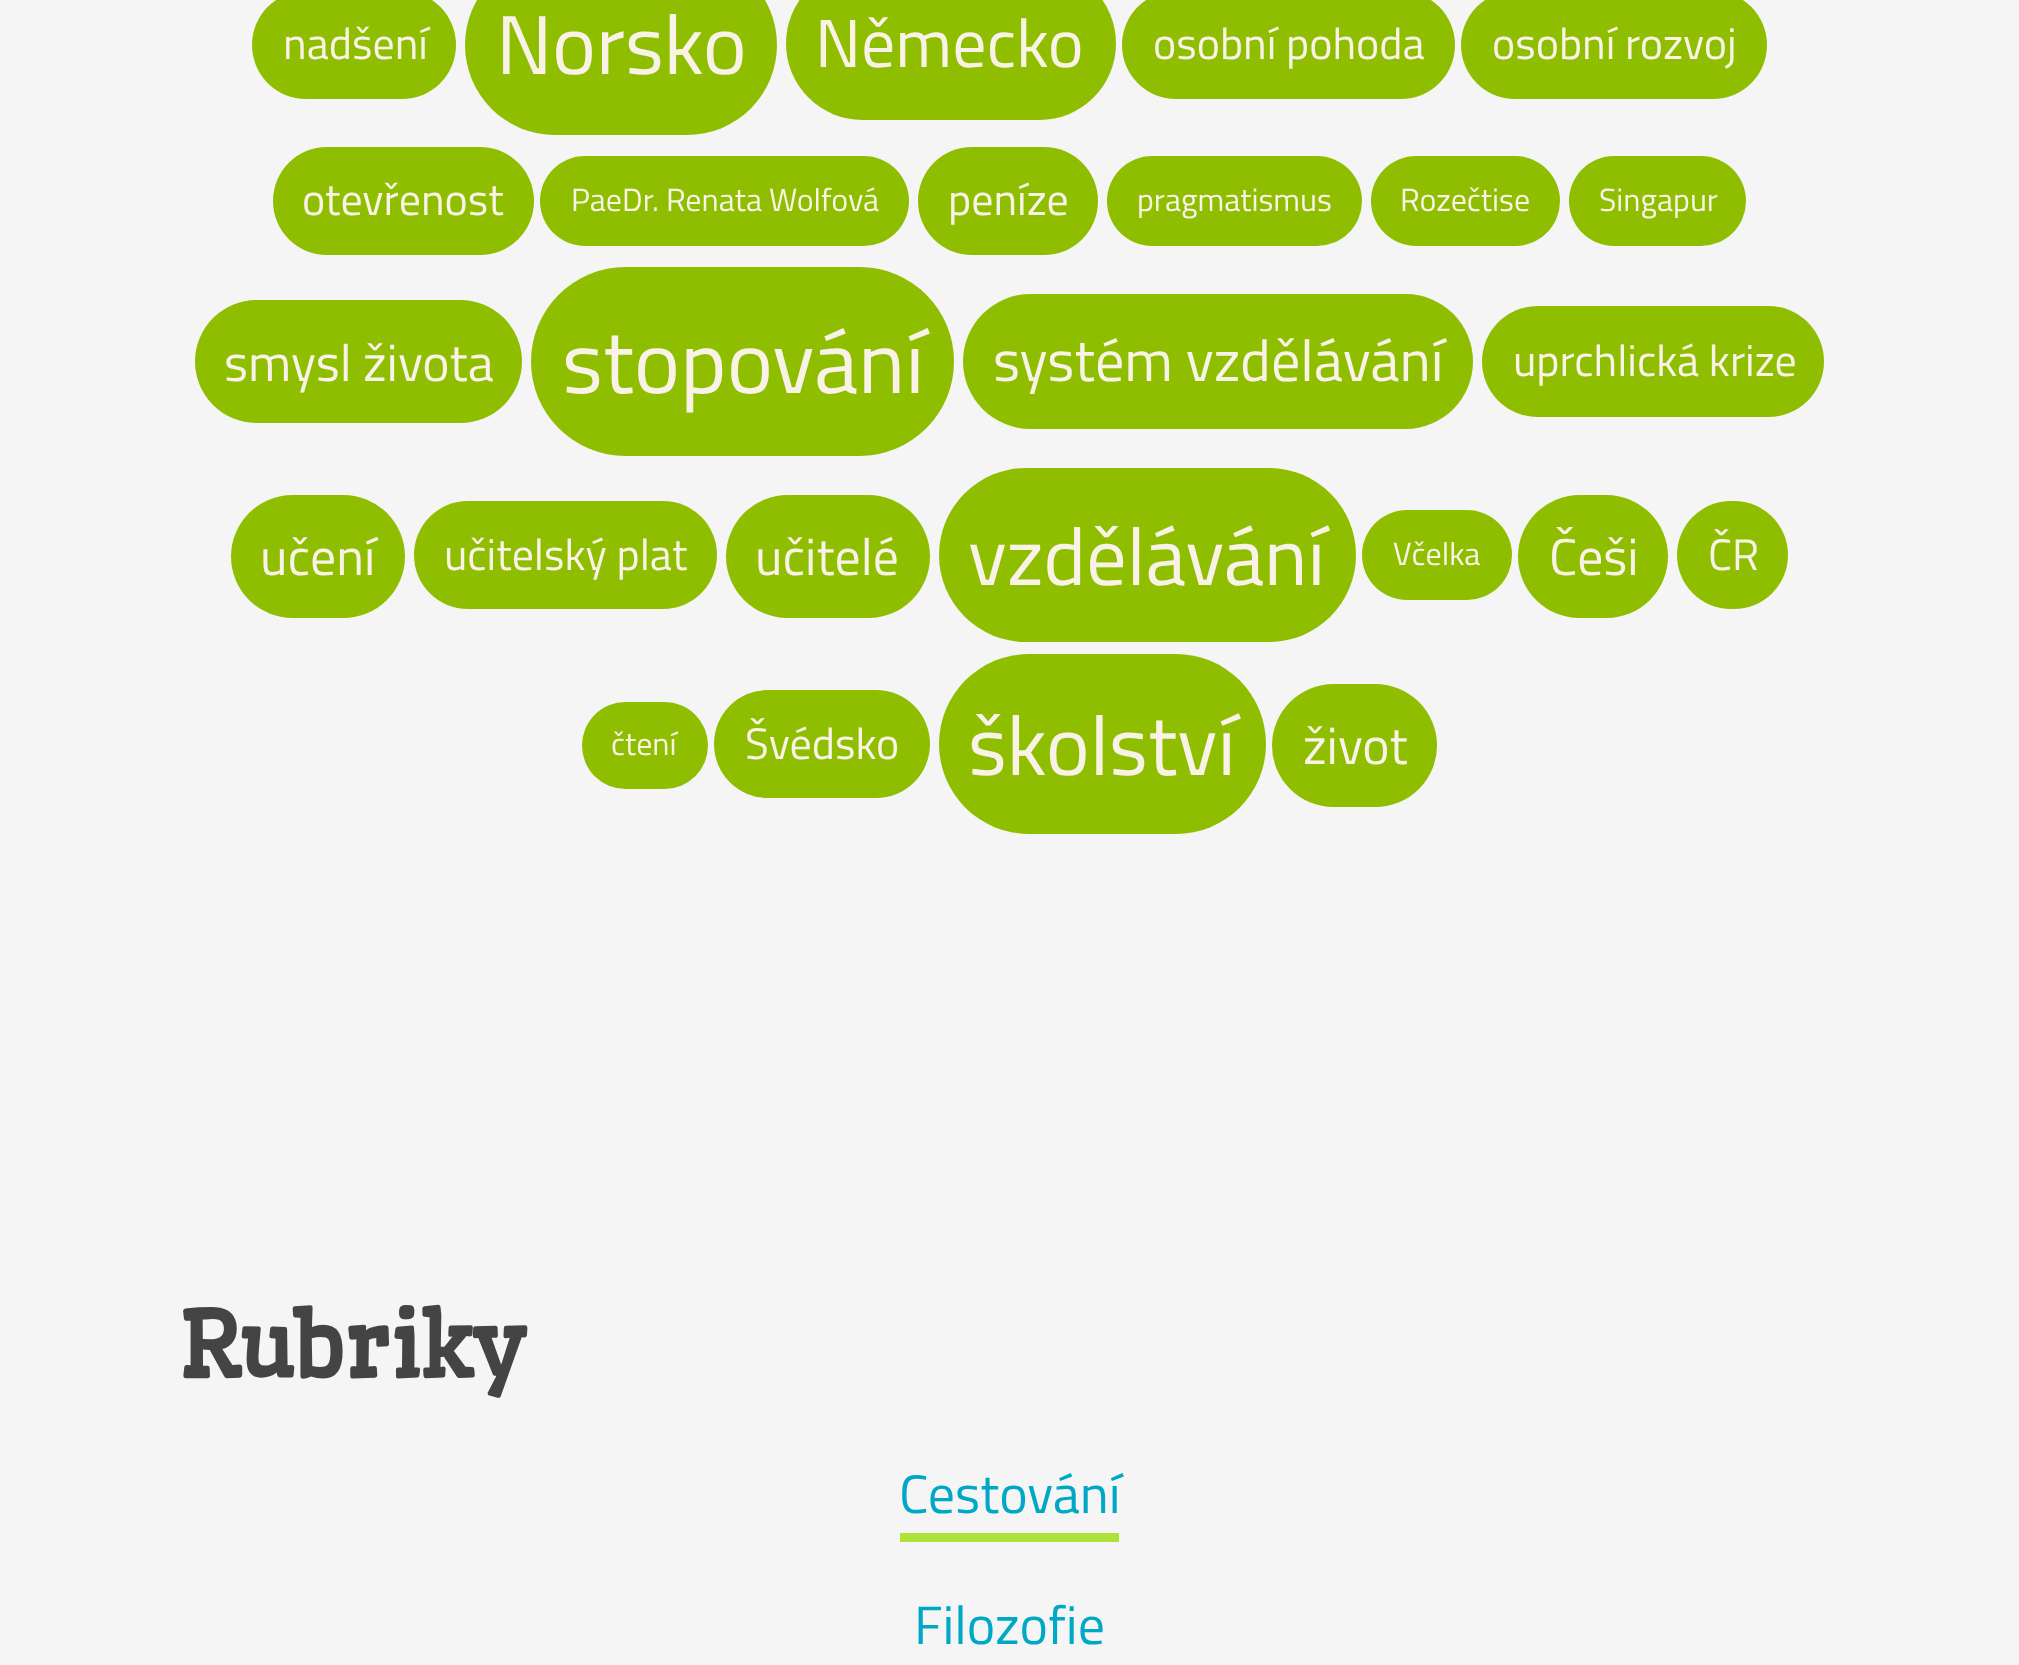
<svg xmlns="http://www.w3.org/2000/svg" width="2019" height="1665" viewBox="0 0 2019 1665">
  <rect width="100%" height="100%" fill="#f5f5f5"/>
  <rect x="252" y="-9" width="204" height="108" rx="54" fill="#8fbe00"/>
  <text x="283" y="59" font-family="Titillium Web" font-size="44" fill="#f9f2e7">nadšení</text>
  <rect x="465" y="-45" width="312" height="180" rx="90" fill="#8fbe00"/>
  <text x="496" y="74" font-family="Titillium Web" font-size="83.5" fill="#f9f2e7">Norsko</text>
  <rect x="786" y="-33" width="330" height="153" rx="76.5" fill="#8fbe00"/>
  <text x="815" y="67" font-family="Titillium Web" font-size="68" fill="#f9f2e7">Německo</text>
  <rect x="1122" y="-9" width="333" height="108" rx="54" fill="#8fbe00"/>
  <text x="1153" y="59" font-family="Titillium Web" font-size="44" fill="#f9f2e7">osobní pohoda</text>
  <rect x="1461" y="-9" width="306" height="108" rx="54" fill="#8fbe00"/>
  <text x="1492" y="59" font-family="Titillium Web" font-size="44" fill="#f9f2e7">osobní rozvoj</text>
  <rect x="273" y="147" width="261" height="108" rx="54" fill="#8fbe00"/>
  <text x="302" y="215" font-family="Titillium Web" font-size="44" fill="#f9f2e7">otevřenost</text>
  <rect x="540" y="156" width="369" height="90" rx="45" fill="#8fbe00"/>
  <text x="571" y="211" font-family="Titillium Web" font-size="32" fill="#f9f2e7">PaeDr. Renata Wolfová</text>
  <rect x="918" y="147" width="180" height="108" rx="54" fill="#8fbe00"/>
  <text x="948" y="215" font-family="Titillium Web" font-size="44" fill="#f9f2e7">peníze</text>
  <rect x="1107" y="156" width="255" height="90" rx="45" fill="#8fbe00"/>
  <text x="1137" y="211" font-family="Titillium Web" font-size="32" fill="#f9f2e7">pragmatismus</text>
  <rect x="1371" y="156" width="189" height="90" rx="45" fill="#8fbe00"/>
  <text x="1400" y="211" font-family="Titillium Web" font-size="32" fill="#f9f2e7">Rozečtise</text>
  <rect x="1569" y="156" width="177" height="90" rx="45" fill="#8fbe00"/>
  <text x="1599" y="211" font-family="Titillium Web" font-size="32" fill="#f9f2e7">Singapur</text>
  <rect x="195" y="300" width="327" height="123" rx="61.5" fill="#8fbe00"/>
  <text x="224" y="381" font-family="Titillium Web" font-size="51.75" fill="#f9f2e7">smysl života</text>
  <rect x="531" y="267" width="423" height="189" rx="94.5" fill="#8fbe00"/>
  <text x="562" y="393" font-family="Titillium Web" font-size="88" fill="#f9f2e7">stopování</text>
  <rect x="963" y="294" width="510" height="135" rx="67.5" fill="#8fbe00"/>
  <text x="993" y="381" font-family="Titillium Web" font-size="58.25" fill="#f9f2e7">systém vzdělávání</text>
  <rect x="1482" y="306" width="342" height="111" rx="55.5" fill="#8fbe00"/>
  <text x="1513" y="376" font-family="Titillium Web" font-size="44" fill="#f9f2e7">uprchlická krize</text>
  <rect x="231" y="495" width="174" height="123" rx="61.5" fill="#8fbe00"/>
  <text x="260" y="575" font-family="Titillium Web" font-size="51.75" fill="#f9f2e7">učení</text>
  <rect x="414" y="501" width="303" height="108" rx="54" fill="#8fbe00"/>
  <text x="444" y="570" font-family="Titillium Web" font-size="44" fill="#f9f2e7">učitelský plat</text>
  <rect x="726" y="495" width="204" height="123" rx="61.5" fill="#8fbe00"/>
  <text x="755" y="575" font-family="Titillium Web" font-size="51.75" fill="#f9f2e7">učitelé</text>
  <rect x="939" y="468" width="417" height="174" rx="87" fill="#8fbe00"/>
  <text x="968" y="585" font-family="Titillium Web" font-size="80.75" fill="#f9f2e7">vzdělávání</text>
  <rect x="1362" y="510" width="150" height="90" rx="45" fill="#8fbe00"/>
  <text x="1393" y="565" font-family="Titillium Web" font-size="32" fill="#f9f2e7">Včelka</text>
  <rect x="1518" y="495" width="150" height="123" rx="61.5" fill="#8fbe00"/>
  <text x="1549" y="575" font-family="Titillium Web" font-size="51.75" fill="#f9f2e7">Češi</text>
  <rect x="1677" y="501" width="111" height="108" rx="54" fill="#8fbe00"/>
  <text x="1708" y="570" font-family="Titillium Web" font-size="44" fill="#f9f2e7">ČR</text>
  <rect x="582" y="702" width="126" height="87" rx="43.5" fill="#8fbe00"/>
  <text x="611" y="755" font-family="Titillium Web" font-size="32" fill="#f9f2e7">čtení</text>
  <rect x="714" y="690" width="216" height="108" rx="54" fill="#8fbe00"/>
  <text x="745" y="759" font-family="Titillium Web" font-size="44" fill="#f9f2e7">Švédsko</text>
  <rect x="939" y="654" width="327" height="180" rx="90" fill="#8fbe00"/>
  <text x="968" y="775" font-family="Titillium Web" font-size="83.5" fill="#f9f2e7">školství</text>
  <rect x="1272" y="684" width="165" height="123" rx="61.5" fill="#8fbe00"/>
  <text x="1303" y="764" font-family="Titillium Web" font-size="51.75" fill="#f9f2e7">život</text>
  <text x="180" y="1378" font-family="Wellfleet" font-size="90" font-weight="bold" fill="#444444">Rubriky</text>
  <text x="899" y="1513" font-family="Titillium Web" font-size="54" fill="#00a8c6">Cestování</text>
  <rect x="900" y="1533" width="219" height="9" fill="#aee239"/>
  <text x="914" y="1644" font-family="Titillium Web" font-size="54" fill="#00a8c6">Filozofie</text>
</svg>
